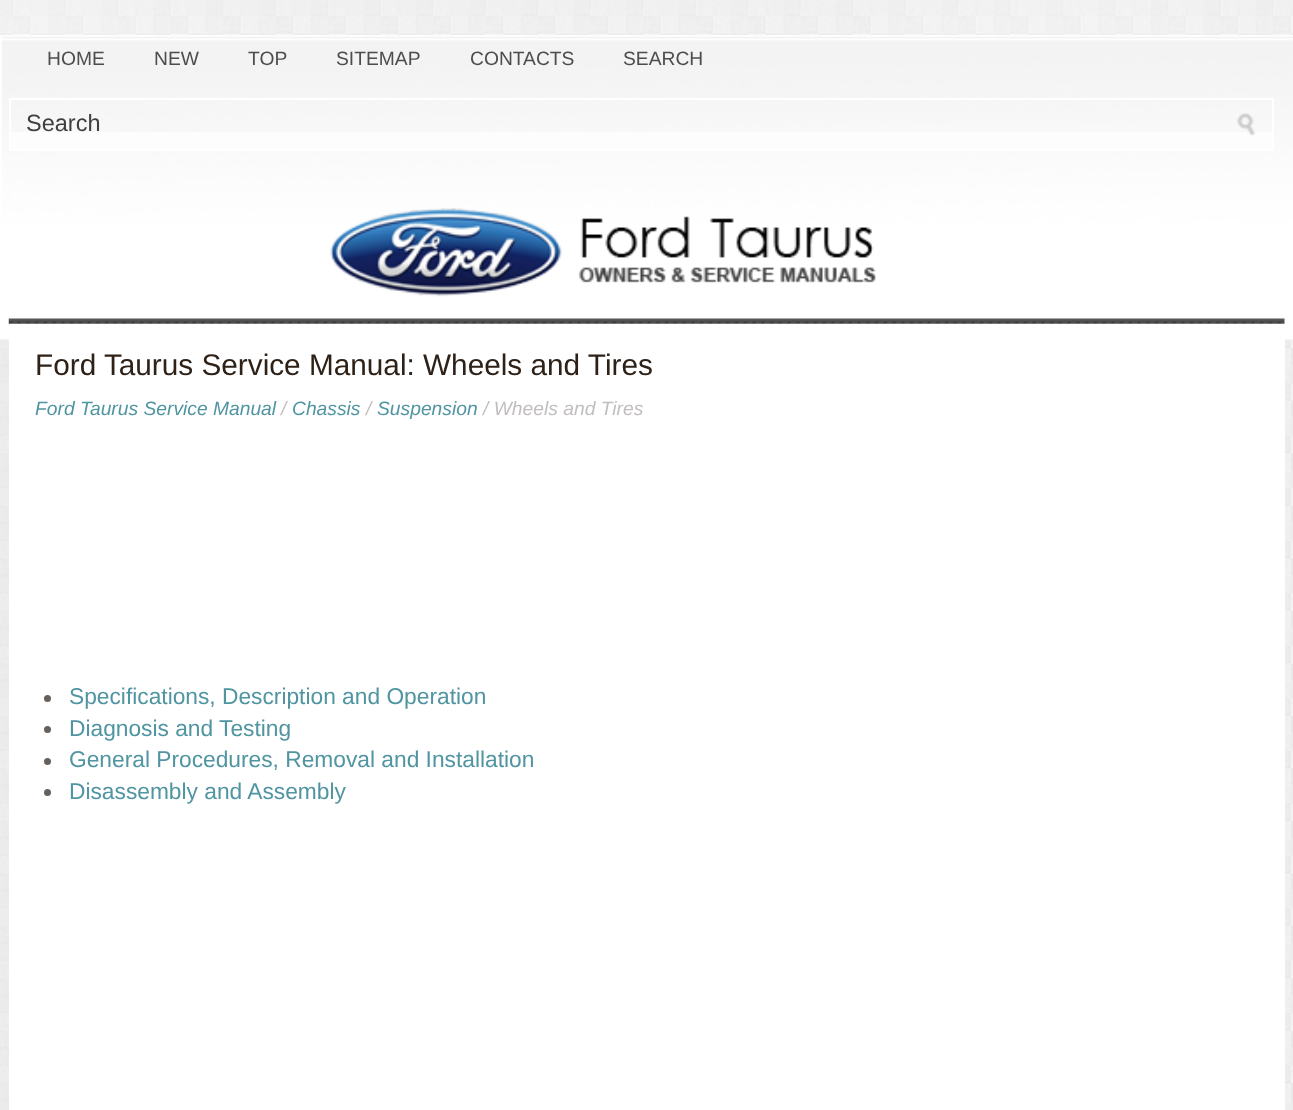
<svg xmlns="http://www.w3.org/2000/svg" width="1293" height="1110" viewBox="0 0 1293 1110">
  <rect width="100%" height="100%" fill="#ffffff"/>
  <image x="0" y="0" width="1293" height="1110" href="img1.png"/>
  <image x="0" y="35" width="1293" height="305" href="img2.png"/>
  <text x="47" y="65" font-family="Liberation Sans" font-size="19.25" fill="#4e4d4d">HOME</text>
  <text x="154" y="65" font-family="Liberation Sans" font-size="19.25" fill="#4e4d4d">NEW</text>
  <text x="248" y="65" font-family="Liberation Sans" font-size="19.25" fill="#4e4d4d">TOP</text>
  <text x="336" y="65" font-family="Liberation Sans" font-size="19.25" fill="#4e4d4d">SITEMAP</text>
  <text x="470" y="65" font-family="Liberation Sans" font-size="19.25" fill="#4e4d4d">CONTACTS</text>
  <text x="623" y="65" font-family="Liberation Sans" font-size="19.25" fill="#4e4d4d">SEARCH</text>
  <rect x="11" y="132" width="1261" height="17" fill="#fdfdfd"/>
  <rect x="10" y="99" width="1263" height="51" fill="none" stroke="#ffffff" stroke-width="2"/>
  <text x="26" y="131" font-family="Liberation Sans" font-size="23.5" fill="#3f3f3f">Search</text>
  <image x="1237" y="113" width="18" height="23" href="img3.png"/>
  <image x="330" y="208" width="546" height="89" href="img4.png"/>
  <image x="8" y="318" width="1277" height="6" href="img5.png"/>
  <rect x="9" y="339" width="1276" height="771" fill="#ffffff"/>
  <text x="35" y="375" font-family="Liberation Sans" font-size="29.75" fill="#2d2118">Ford Taurus Service Manual: Wheels and Tires</text>
  <text x="35" y="415" font-family="Liberation Sans" font-size="19.25" font-style="italic" fill="#5095a1">Ford Taurus Service Manual</text>
  <text x="281" y="415" font-family="Liberation Sans" font-size="19.25" font-style="italic" fill="#c2bebe">/</text>
  <text x="292" y="415" font-family="Liberation Sans" font-size="19.25" font-style="italic" fill="#5095a1">Chassis</text>
  <text x="366" y="415" font-family="Liberation Sans" font-size="19.25" font-style="italic" fill="#c2bebe">/</text>
  <text x="377" y="415" font-family="Liberation Sans" font-size="19.25" font-style="italic" fill="#5095a1">Suspension</text>
  <text x="483" y="415" font-family="Liberation Sans" font-size="19.25" font-style="italic" fill="#c2bebe">/ Wheels and Tires</text>
  <circle cx="47.5" cy="698.5" r="3.5" fill="#68615b"/>
  <text x="69" y="704" font-family="Liberation Sans" font-size="22.75" fill="#5095a1">Specifications, Description and Operation</text>
  <circle cx="47.5" cy="729.5" r="3.5" fill="#68615b"/>
  <text x="69" y="736" font-family="Liberation Sans" font-size="22.75" fill="#5095a1">Diagnosis and Testing</text>
  <circle cx="47.5" cy="761.5" r="3.5" fill="#68615b"/>
  <text x="69" y="767" font-family="Liberation Sans" font-size="22.75" fill="#5095a1">General Procedures, Removal and Installation</text>
  <circle cx="47.5" cy="792.5" r="3.5" fill="#68615b"/>
  <text x="69" y="799" font-family="Liberation Sans" font-size="22.75" fill="#5095a1">Disassembly and Assembly</text>
</svg>
